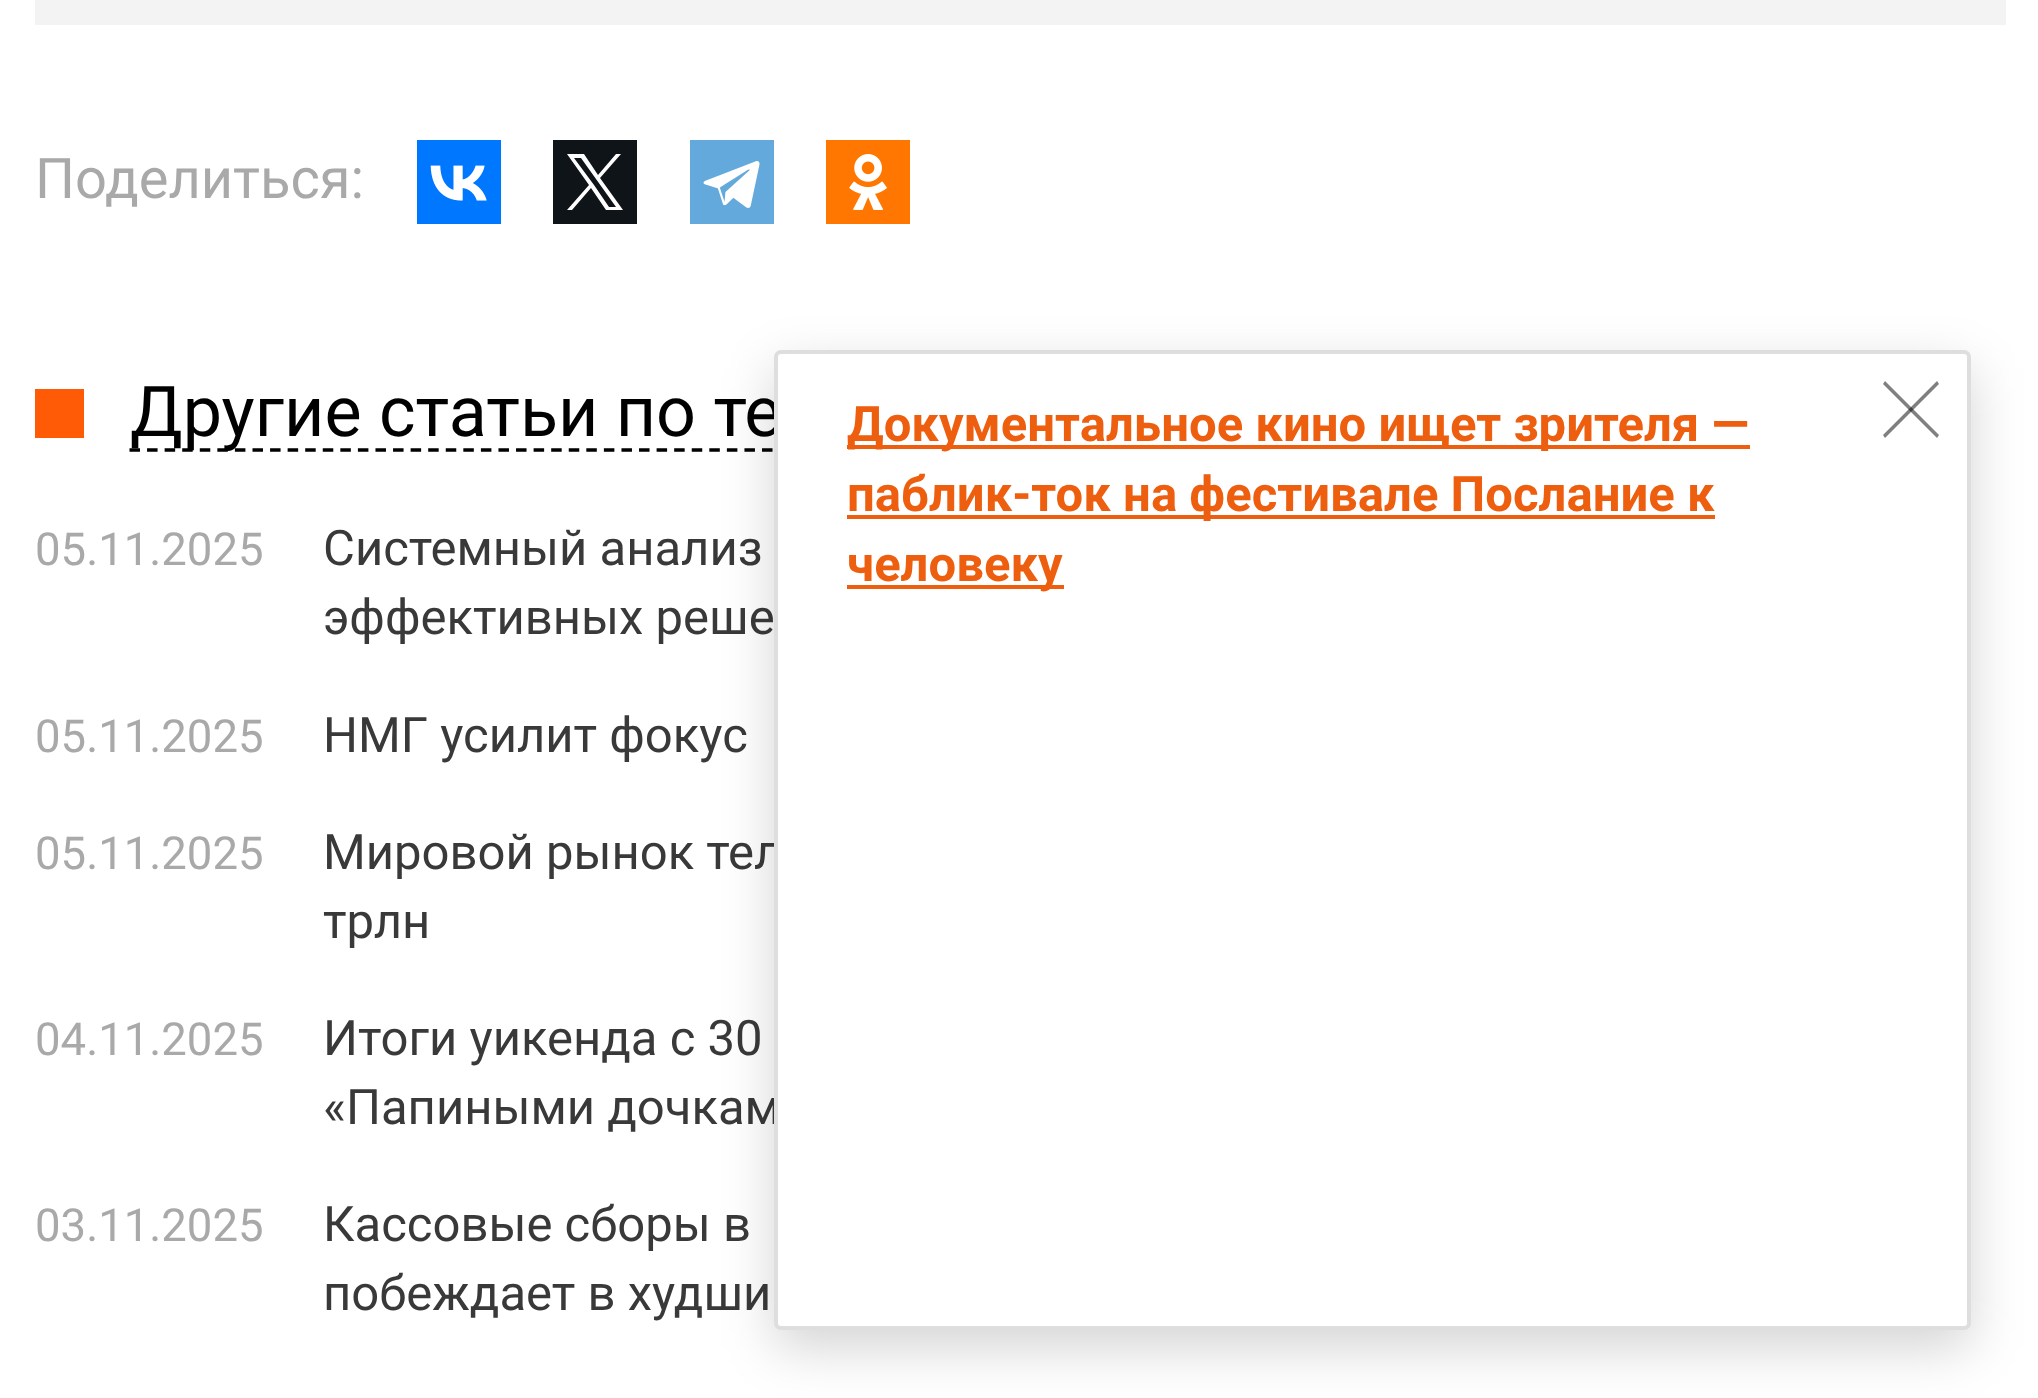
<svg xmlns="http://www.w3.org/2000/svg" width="2038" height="1398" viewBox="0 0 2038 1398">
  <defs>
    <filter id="blur1" x="-50%" y="-200%" width="200%" height="500%"><feGaussianBlur stdDeviation="26"/></filter>
  </defs>
  <rect width="100%" height="100%" fill="#ffffff"/>
  <rect x="35" y="0" width="1971" height="25" fill="#f4f3f3"/>
  <text x="35" y="198" font-family="Roboto" font-size="56" fill="#a9a9a9">Поделиться:</text>
  <rect x="417" y="140" width="84" height="84" fill="#0077ff"/>
  <image x="430" y="165" width="57" height="36" href="img1.png"/>
  <rect x="553" y="140" width="84" height="84" fill="#0f1419"/>
  <path d="M600 178L621 154H616L598 175L584 154H567L589 185L567 210H572L591 188L606 210H623ZM594 185L574 158H581L616 207H609Z" fill="#ffffff"/>
  <rect x="690" y="140" width="84" height="84" fill="#64a9dc"/>
  <image x="703" y="161" width="57" height="47" href="img2.png"/>
  <rect x="826" y="140" width="84" height="84" fill="#ff7700"/>
  <image x="849" y="154" width="38" height="56" href="img3.png"/>
  <rect x="35" y="389" width="49" height="49" fill="#ff5a06"/>
  <path d="M129.5 450H1281" fill="none" stroke="#000000" stroke-width="3.5" stroke-dasharray="10.5 7.07"/>
  <text x="130" y="436" font-family="Roboto" font-size="70" fill="#000000">Другие статьи по те</text>
  <text x="35" y="565" font-family="Roboto" font-size="45.5" fill="#a9a9a9">05.11.2025</text>
  <text x="323" y="565" font-family="Roboto" font-size="49" fill="#393939">Системный анализ</text>
  <text x="323" y="634" font-family="Roboto" font-size="49" fill="#393939">эффективных реше</text>
  <text x="35" y="752" font-family="Roboto" font-size="45.5" fill="#a9a9a9">05.11.2025</text>
  <text x="323" y="752" font-family="Roboto" font-size="49" fill="#393939">НМГ усилит фокус</text>
  <text x="35" y="869" font-family="Roboto" font-size="45.5" fill="#a9a9a9">05.11.2025</text>
  <text x="323" y="869" font-family="Roboto" font-size="49" fill="#393939">Мировой рынок тел</text>
  <text x="323" y="938" font-family="Roboto" font-size="49" fill="#393939">трлн</text>
  <text x="35" y="1055" font-family="Roboto" font-size="45.5" fill="#a9a9a9">04.11.2025</text>
  <text x="323" y="1055" font-family="Roboto" font-size="49" fill="#393939">Итоги уикенда с 30</text>
  <text x="323" y="1124" font-family="Roboto" font-size="49" fill="#393939">«Папиными дочкам</text>
  <text x="35" y="1241" font-family="Roboto" font-size="45.5" fill="#a9a9a9">03.11.2025</text>
  <text x="323" y="1241" font-family="Roboto" font-size="49" fill="#393939">Кассовые сборы в</text>
  <text x="323" y="1310" font-family="Roboto" font-size="49" fill="#393939">побеждает в худши</text>
  <rect x="774" y="368" width="1197" height="980" rx="7" fill="#000000" fill-opacity="0.17" filter="url(#blur1)"/>
  <rect x="776" y="352" width="1193" height="976" rx="5" fill="#ffffff" stroke="#dedede" stroke-width="4"/>
  <rect x="847" y="445" width="903" height="4" fill="#ee5e0f"/>
  <text x="847" y="441" font-family="Roboto" font-size="49" font-weight="bold" fill="#ee5e0f">Документальное кино ищет зрителя —</text>
  <rect x="847" y="515" width="868" height="4" fill="#ee5e0f"/>
  <text x="847" y="511" font-family="Roboto" font-size="49" font-weight="bold" fill="#ee5e0f">паблик-ток на фестивале Послание к</text>
  <rect x="847" y="585" width="217" height="4" fill="#ee5e0f"/>
  <text x="847" y="581" font-family="Roboto" font-size="49" font-weight="bold" fill="#ee5e0f">человеку</text>
  <path d="M1885 381L1939 435L1937 438L1883 384Z" fill="#808080"/>
  <path d="M1883 435L1937 381L1939 384L1885 438Z" fill="#000000" fill-opacity="0.5"/>
</svg>
